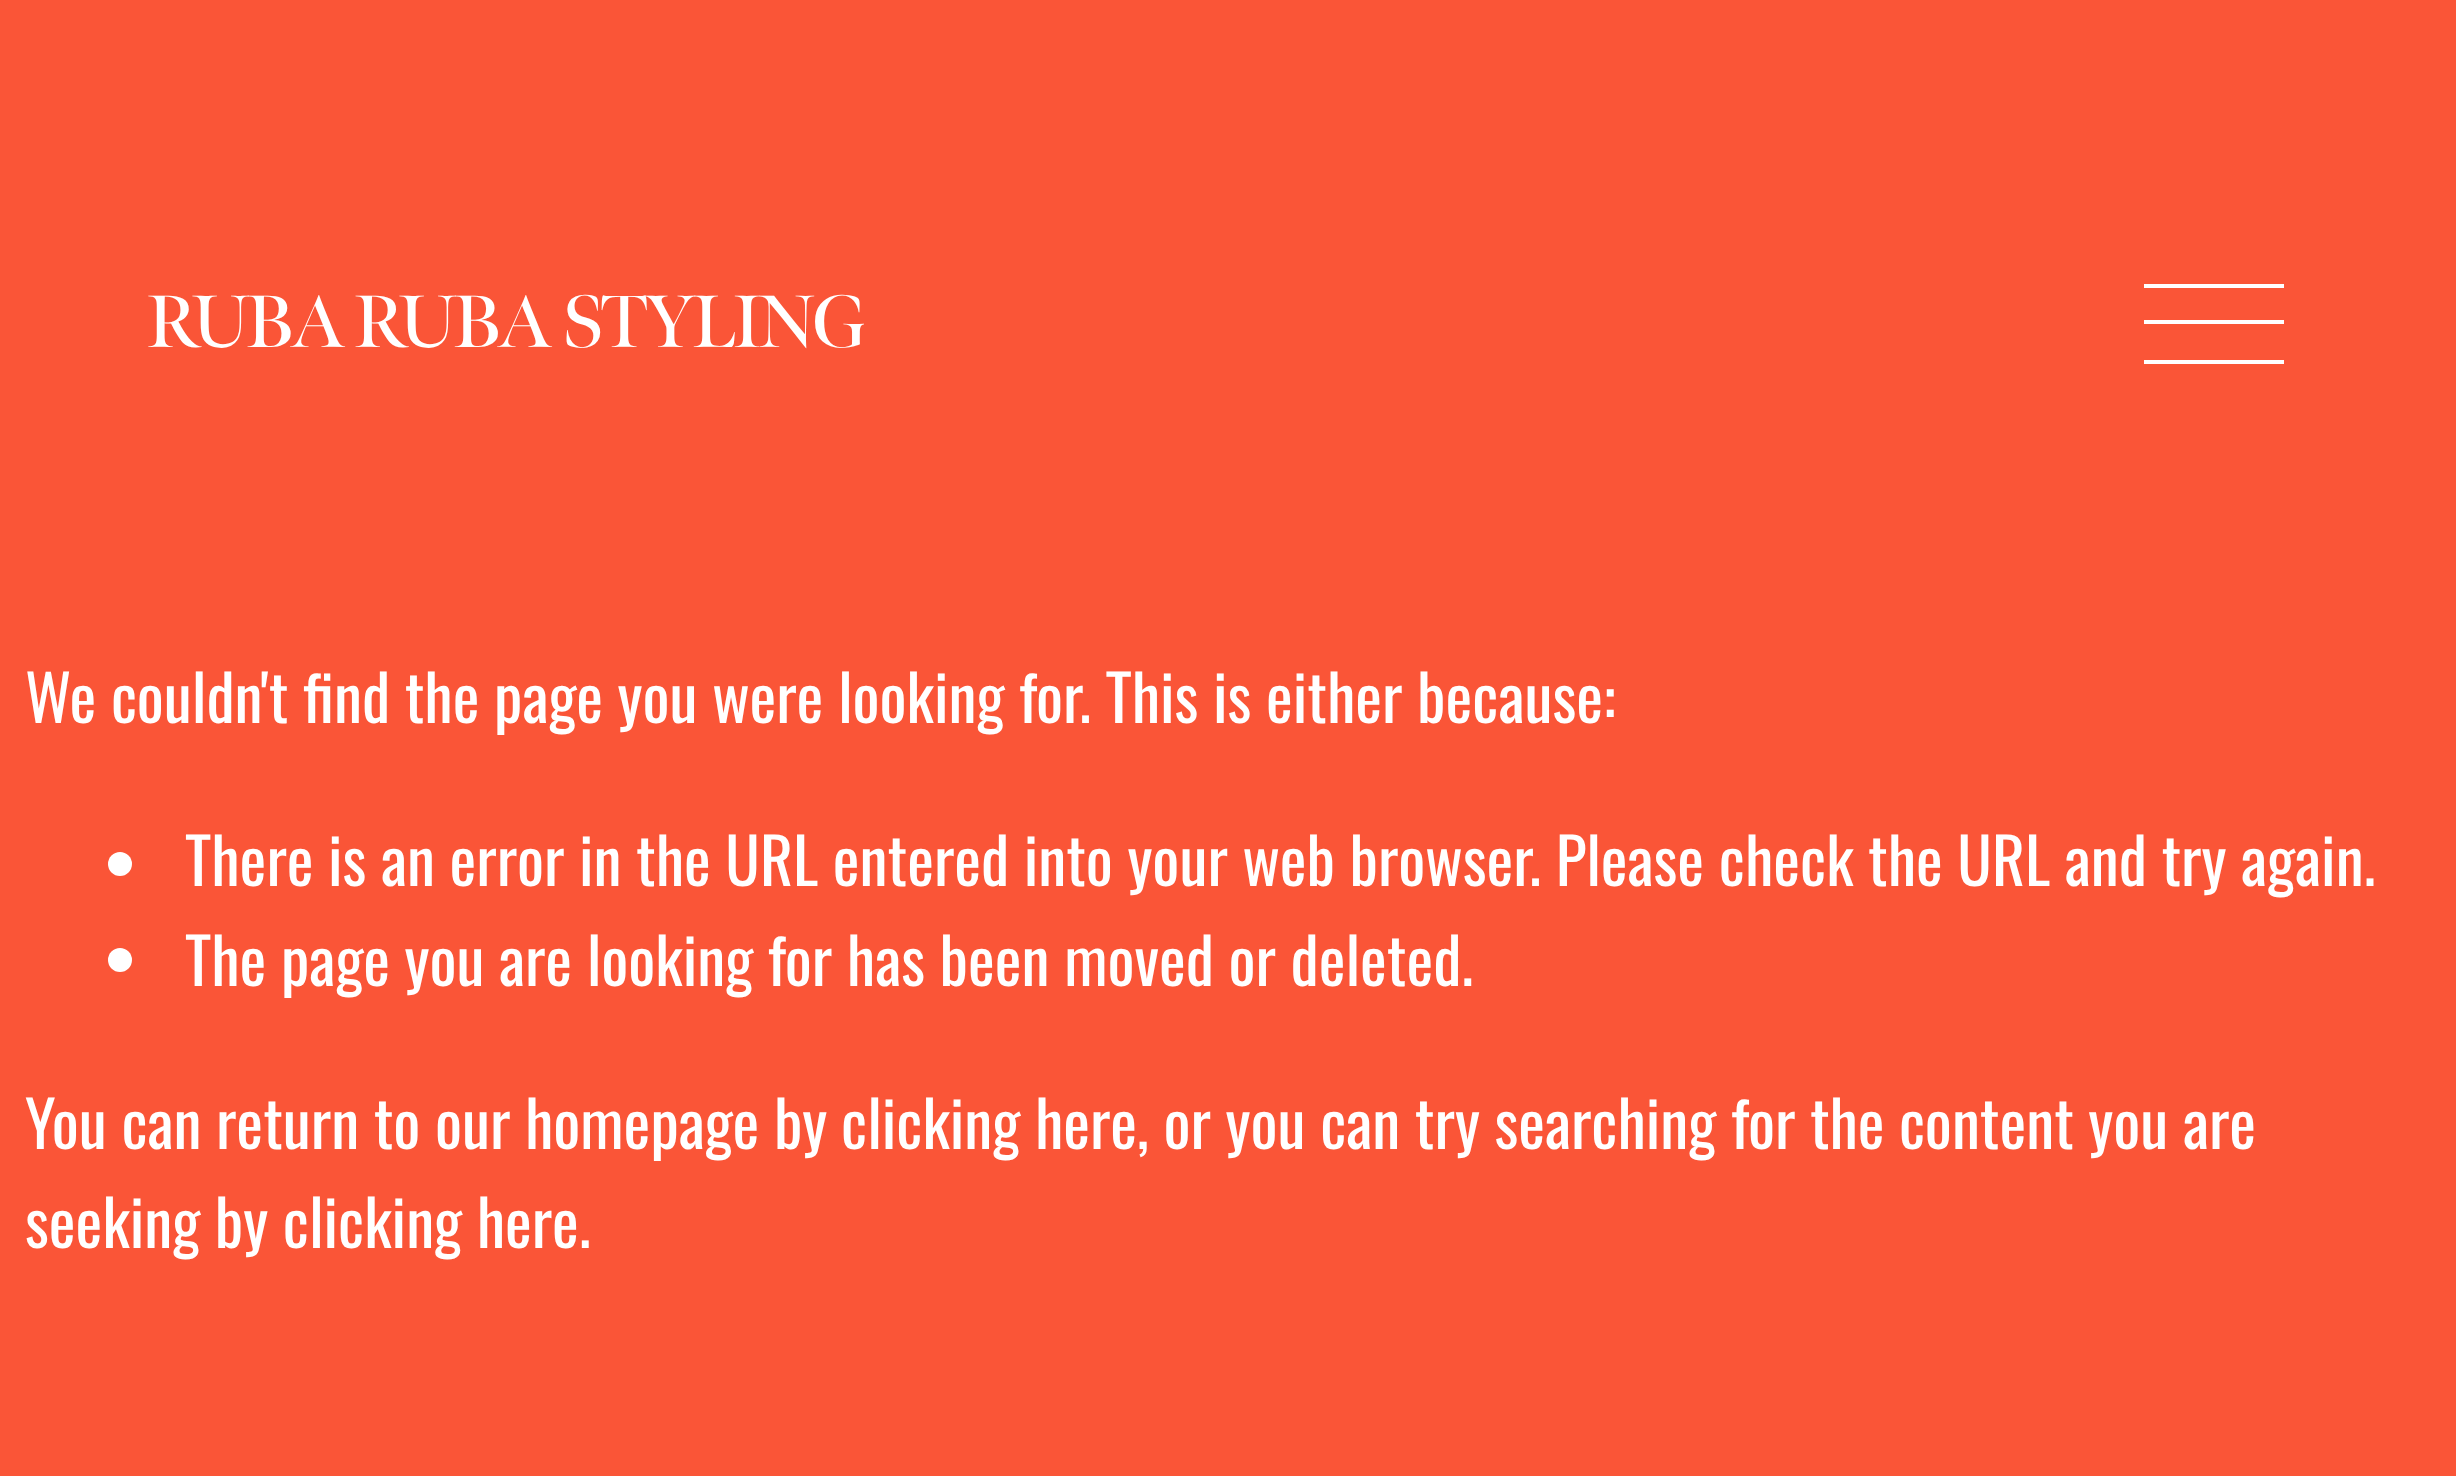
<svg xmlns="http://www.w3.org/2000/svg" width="2456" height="1476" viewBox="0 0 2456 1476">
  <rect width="100%" height="100%" fill="#fa5537"/>
  <text x="147" y="347" font-family="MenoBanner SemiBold" font-size="73.75" font-weight="600" letter-spacing="-3" fill="#ffffff">RUBA RUBA STYLING</text>
  <rect x="2144" y="284" width="140" height="4" fill="#ffffff"/>
  <rect x="2144" y="320" width="140" height="4" fill="#ffffff"/>
  <rect x="2144" y="360" width="140" height="4" fill="#ffffff"/>
  <text x="25" y="723" font-family="Oswald" font-size="63.65" fill="#ffffff">We couldn't find the page you were looking for. This is either because:</text>
  <circle cx="120" cy="864" r="12" fill="#ffffff"/>
  <text x="185" y="886" font-family="Oswald" font-size="63.65" fill="#ffffff">There is an error in the URL entered into your web browser. Please check the URL and try again.</text>
  <circle cx="120" cy="960" r="12" fill="#ffffff"/>
  <text x="185" y="986" font-family="Oswald" font-size="63.65" fill="#ffffff">The page you are looking for has been moved or deleted.</text>
  <text x="25" y="1149" font-family="Oswald" font-size="63.65" fill="#ffffff">You can return to our homepage by</text>
  <text x="841" y="1149" font-family="Oswald" font-size="63.65" fill="#ffffff">clicking here, or you can try searching for the</text>
  <text x="1899" y="1149" font-family="Oswald" font-size="63.65" fill="#ffffff">content you are</text>
  <text x="25" y="1248" font-family="Oswald" font-size="63.65" fill="#ffffff">seeking by clicking here.</text>
</svg>
